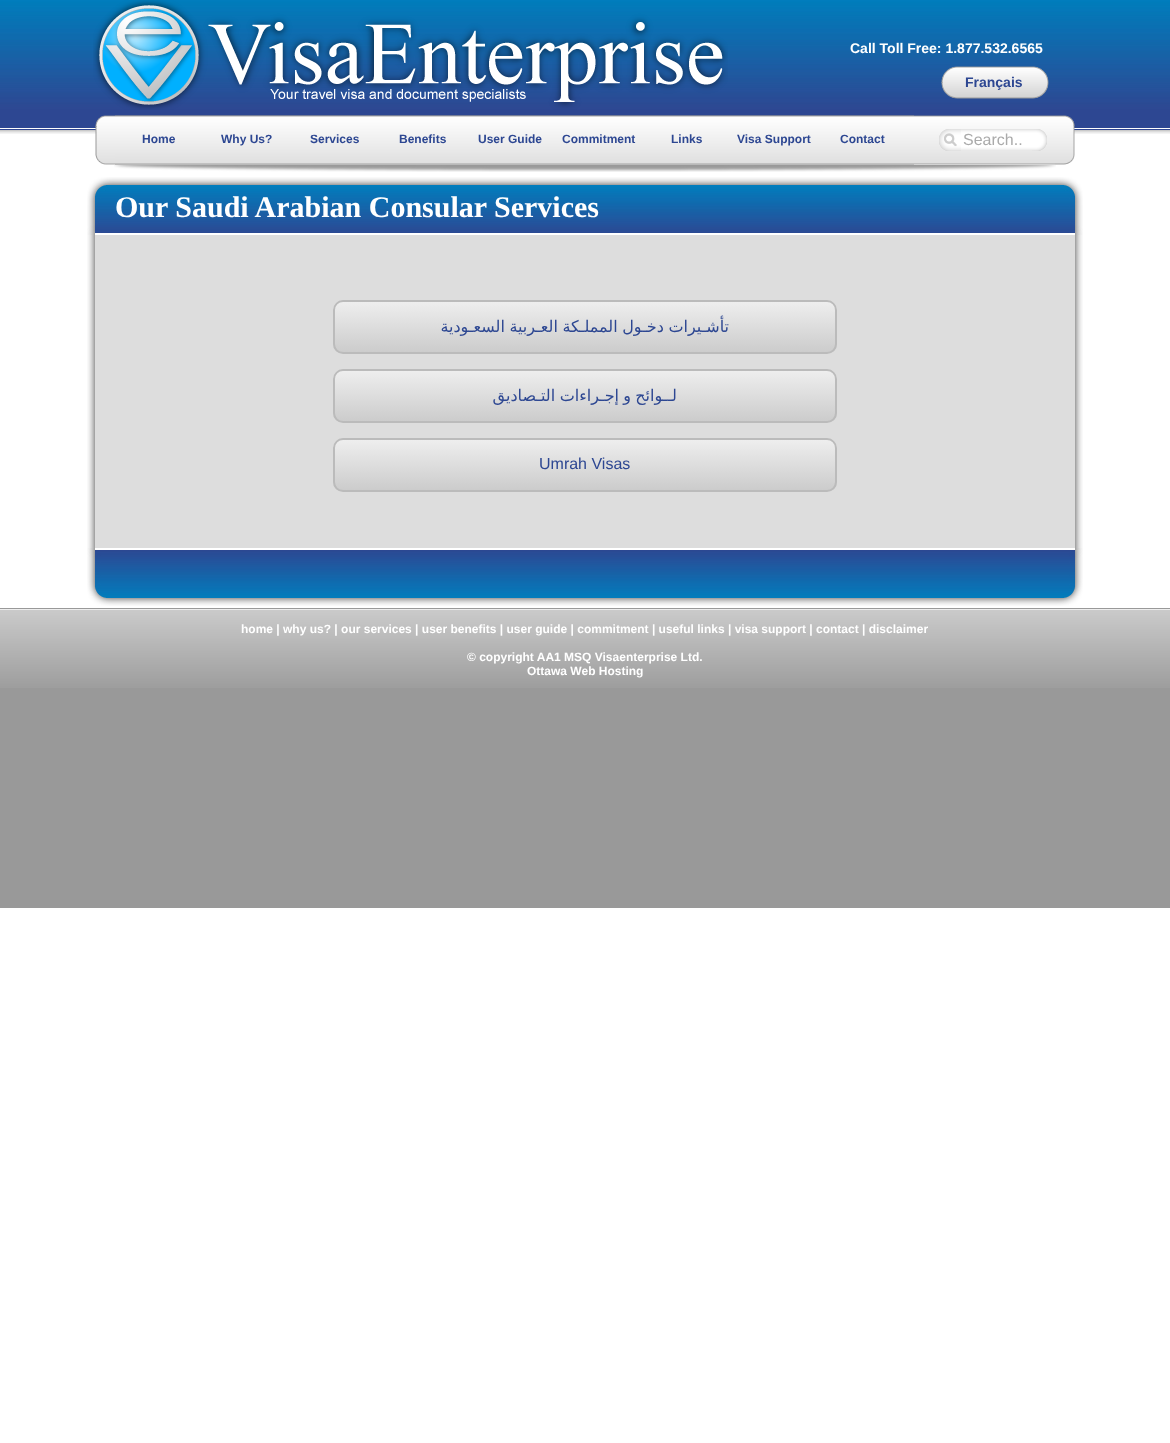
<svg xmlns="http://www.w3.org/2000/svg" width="1170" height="1443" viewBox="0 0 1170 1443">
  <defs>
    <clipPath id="clip1"><rect x="333" y="300" width="504" height="54" rx="10"/></clipPath>
    <linearGradient id="g1" gradientUnits="userSpaceOnUse" x1="585" y1="302" x2="585" y2="352"><stop offset="0" stop-color="#eeeeee"/><stop offset="1" stop-color="#cccccc"/></linearGradient>
    <clipPath id="clip2"><rect x="333" y="369" width="504" height="54" rx="10"/></clipPath>
    <linearGradient id="g2" gradientUnits="userSpaceOnUse" x1="585" y1="371" x2="585" y2="421"><stop offset="0" stop-color="#eeeeee"/><stop offset="1" stop-color="#cccccc"/></linearGradient>
    <clipPath id="clip3"><rect x="333" y="438" width="504" height="54" rx="10"/></clipPath>
    <linearGradient id="g3" gradientUnits="userSpaceOnUse" x1="585" y1="440" x2="585" y2="490"><stop offset="0" stop-color="#eeeeee"/><stop offset="1" stop-color="#cccccc"/></linearGradient>
  </defs>
  <rect width="100%" height="100%" fill="#ffffff"/>
  <image x="0" y="0" width="1170" height="134" href="img1.png"/>
  <image x="93" y="0" width="635" height="110" href="img2.png"/>
  <text x="850" y="53" font-family="Liberation Sans" font-size="14" font-weight="bold" fill="#ffffff">Call Toll Free: 1.877.532.6565</text>
  <image x="941" y="66" width="108" height="33" href="img3.png"/>
  <text x="965" y="87" font-family="Liberation Sans" font-size="14" font-weight="bold" fill="#2d4792">Français</text>
  <image x="95" y="115" width="20" height="50" href="img4.png"/>
  <image x="115" y="115" width="940" height="50" href="img5.png"/>
  <image x="115" y="115" width="799" height="50" href="img6.png"/>
  <text x="142" y="143" font-family="Liberation Sans" font-size="12" font-weight="bold" fill="#2d4792">Home</text>
  <text x="221" y="143" font-family="Liberation Sans" font-size="12" font-weight="bold" fill="#2d4792">Why Us?</text>
  <text x="310" y="143" font-family="Liberation Sans" font-size="12" font-weight="bold" fill="#2d4792">Services</text>
  <text x="399" y="143" font-family="Liberation Sans" font-size="12" font-weight="bold" fill="#2d4792">Benefits</text>
  <text x="478" y="143" font-family="Liberation Sans" font-size="12" font-weight="bold" fill="#2d4792">User Guide</text>
  <text x="562" y="143" font-family="Liberation Sans" font-size="12" font-weight="bold" fill="#2d4792">Commitment</text>
  <text x="671" y="143" font-family="Liberation Sans" font-size="12" font-weight="bold" fill="#2d4792">Links</text>
  <text x="737" y="143" font-family="Liberation Sans" font-size="12" font-weight="bold" fill="#2d4792">Visa Support</text>
  <text x="840" y="143" font-family="Liberation Sans" font-size="12" font-weight="bold" fill="#2d4792">Contact</text>
  <image x="939" y="129" width="22" height="22" href="img7.png"/>
  <image x="961" y="129" width="71" height="21" href="img8.png"/>
  <text x="963" y="145" font-family="Liberation Sans" font-size="16" fill="#aaaaaa">Search..</text>
  <image x="1032" y="129" width="15" height="22" href="img9.png"/>
  <image x="1055" y="115" width="20" height="50" href="img10.png"/>
  <image x="114" y="165" width="942" height="7" href="img11.png"/>
  <image x="87" y="177" width="996" height="58" href="img12.png"/>
  <text x="115" y="217" font-family="Liberation Serif" font-size="30" font-weight="bold" fill="#ffffff">Our Saudi Arabian Consular Services</text>
  <image x="87" y="235" width="996" height="313" href="img13.png"/>
  <rect x="95" y="235" width="980" height="313" fill="#dddddd"/>
  <g clip-path="url(#clip1)">
    <rect x="333" y="302" width="504" height="50" fill="url(#g1)"/>
  </g>
  <rect x="334" y="301" width="502" height="52" rx="9" fill="none" stroke="#bbbbbb" stroke-width="2"/>
  <text x="729" y="332" word-spacing="-0.5" font-family="DejaVu Sans" font-size="16" direction="rtl" fill="#2d4792">تأشـيرات دخـول المملـكة العـربية السعـودية</text>
  <g clip-path="url(#clip2)">
    <rect x="333" y="371" width="504" height="50" fill="url(#g2)"/>
  </g>
  <rect x="334" y="370" width="502" height="52" rx="9" fill="none" stroke="#bbbbbb" stroke-width="2"/>
  <text x="619" y="401" word-spacing="-0.5" font-family="DejaVu Sans" font-size="16" direction="rtl" fill="#2d4792">إجـراءات التـصاديق</text>
  <text x="631" y="401" font-family="DejaVu Sans" font-size="16" direction="rtl" fill="#2d4792">و</text>
  <text x="677" y="401" font-family="DejaVu Sans" font-size="16" direction="rtl" fill="#2d4792">لــوائح</text>
  <g clip-path="url(#clip3)">
    <rect x="333" y="440" width="504" height="50" fill="url(#g3)"/>
  </g>
  <rect x="334" y="439" width="502" height="52" rx="9" fill="none" stroke="#bbbbbb" stroke-width="2"/>
  <text x="539" y="469" font-family="Liberation Sans" font-size="16" fill="#2d4792">Umrah Visas</text>
  <image x="87" y="548" width="996" height="58" href="img14.png"/>
  <rect x="0" y="608" width="1170" height="300" fill="#999999"/>
  <image x="0" y="609" width="1170" height="79" href="img15.png"/>
  <text x="241" y="633" font-family="Liberation Sans" font-size="12" font-weight="bold" fill="#ffffff">home | why us? | our services | user benefits | user guide | commitment | useful links | visa support | contact | disclaimer</text>
  <text x="467" y="661" font-family="Liberation Sans" font-size="12" font-weight="bold" fill="#ffffff">© copyright AA1 MSQ Visaenterprise Ltd.</text>
  <text x="527" y="675" font-family="Liberation Sans" font-size="12" font-weight="bold" fill="#ffffff">Ottawa Web Hosting</text>
</svg>
